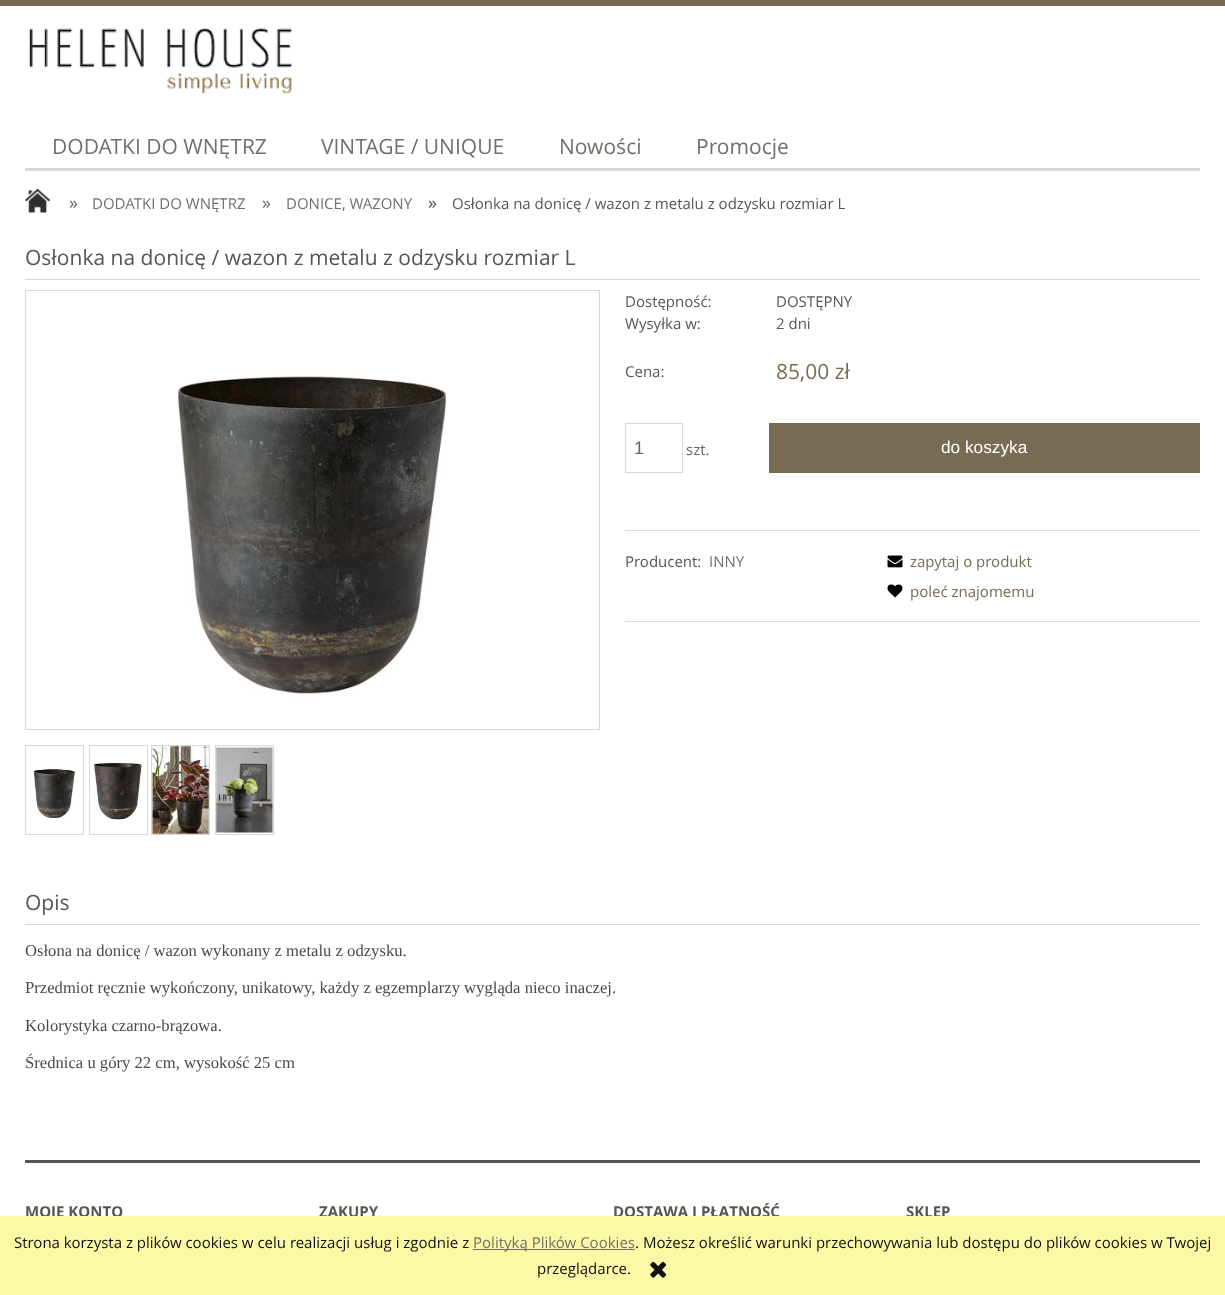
<svg xmlns="http://www.w3.org/2000/svg" width="1225" height="1295" viewBox="0 0 1225 1295">
  <rect width="100%" height="100%" fill="#ffffff"/>
  <rect x="0" y="0" width="1225" height="6" fill="#786b53"/>
  <image x="28" y="27" width="264" height="67" href="img1.png"/>
  <rect x="25" y="168" width="1175" height="3" fill="#d8d8d8"/>
  <text x="52" y="154" font-family="Open Sans" font-size="21" fill="#70706b">DODATKI DO WNĘTRZ</text>
  <text x="321" y="154" font-family="Open Sans" font-size="21" fill="#70706b">VINTAGE / UNIQUE</text>
  <text x="559" y="154" font-family="Open Sans" font-size="21" fill="#70706b">Nowości</text>
  <text x="696" y="154" font-family="Open Sans" font-size="21" fill="#70706b">Promocje</text>
  <image x="25" y="188" width="25" height="25" href="img2.png"/>
  <text x="69" y="209" font-family="Open Sans" font-size="18" fill="#70706b">»</text>
  <text x="92" y="209" font-family="Open Sans" font-size="15" fill="#70706b">DODATKI DO WNĘTRZ</text>
  <text x="262" y="209" font-family="Open Sans" font-size="18" fill="#70706b">»</text>
  <text x="286" y="209" font-family="Open Sans" font-size="15" fill="#70706b">DONICE, WAZONY</text>
  <text x="428" y="209" font-family="Open Sans" font-size="18" fill="#575651">»</text>
  <text x="452" y="209" font-family="Open Sans" font-size="15" fill="#575651">Osłonka na donicę / wazon z metalu z odzysku rozmiar L</text>
  <rect x="25" y="279" width="1175" height="1" fill="#d8d8d8"/>
  <text x="25" y="265" font-family="Open Sans" font-size="21" fill="#575651">Osłonka na donicę / wazon z metalu z odzysku rozmiar L</text>
  <rect x="25.5" y="290.5" width="574" height="439" fill="none" stroke="#d8d8d8"/>
  <image x="177" y="376" width="271" height="319" href="img3.png"/>
  <rect x="25.5" y="745.5" width="58" height="89" fill="none" stroke="#d8d8d8"/>
  <image x="33" y="768" width="42" height="51" href="img4.png"/>
  <rect x="89.5" y="745.5" width="58" height="89" fill="none" stroke="#d8d8d8"/>
  <image x="92" y="761" width="51" height="59" href="img5.png"/>
  <rect x="151.5" y="745.5" width="58" height="89" fill="none" stroke="#d8d8d8"/>
  <image x="152" y="746" width="57" height="88" href="img6.png"/>
  <rect x="215.5" y="745.5" width="58" height="89" fill="none" stroke="#d8d8d8"/>
  <image x="216" y="747" width="57" height="86" href="img7.png"/>
  <text x="625" y="307" font-family="Open Sans" font-size="15" fill="#575651">Dostępność:</text>
  <text x="776" y="307" font-family="Open Sans" font-size="15" fill="#575651">DOSTĘPNY</text>
  <text x="625" y="329" font-family="Open Sans" font-size="15" fill="#575651">Wysyłka w:</text>
  <text x="776" y="329" font-family="Open Sans" font-size="15" fill="#575651">2 dni</text>
  <text x="625" y="377" font-family="Open Sans" font-size="15" fill="#575651">Cena:</text>
  <text x="776" y="379" font-family="Open Sans" font-size="21" fill="#786b53">85,00 zł</text>
  <rect x="625.5" y="423.5" width="57" height="49" fill="none" stroke="#d8d8d8"/>
  <text x="634" y="454" font-family="Liberation Sans" font-size="18" fill="#666666">1</text>
  <text x="686" y="455" font-family="Open Sans" font-size="15" fill="#666666">szt.</text>
  <rect x="769" y="423" width="431" height="50" fill="#786b53"/>
  <text x="941" y="453" font-family="Liberation Sans" font-size="17.25" fill="#ffffff">do koszyka</text>
  <rect x="625" y="530" width="575" height="1" fill="#d8d8d8"/>
  <rect x="625" y="621" width="575" height="1" fill="#d8d8d8"/>
  <text x="625" y="567" font-family="Open Sans" font-size="15" fill="#575651">Producent:</text>
  <text x="709" y="567" font-family="Open Sans" font-size="15" fill="#70706b">INNY</text>
  <image x="887" y="555" width="16" height="13" href="img8.png"/>
  <text x="910" y="567" font-family="Open Sans" font-size="15" fill="#786b53">zapytaj o produkt</text>
  <image x="887" y="584" width="16" height="14" href="img9.png"/>
  <text x="910" y="597" font-family="Open Sans" font-size="15" fill="#786b53">poleć znajomemu</text>
  <rect x="25" y="924" width="1175" height="1" fill="#d8d8d8"/>
  <text x="25" y="910" font-family="Open Sans" font-size="21" fill="#575651">Opis</text>
  <text x="25" y="956" font-family="Liberation Serif" font-size="16.65" fill="#4a4a4a">Osłona na donicę / wazon wykonany z metalu z odzysku.</text>
  <text x="25" y="993" font-family="Liberation Serif" font-size="16.65" fill="#4a4a4a">Przedmiot ręcznie wykończony, unikatowy, każdy z egzemplarzy wygląda nieco inaczej.</text>
  <text x="25" y="1031" font-family="Liberation Serif" font-size="16.65" fill="#4a4a4a">Kolorystyka czarno-brązowa.</text>
  <text x="25" y="1068" font-family="Liberation Serif" font-size="16.65" fill="#4a4a4a">Średnica u góry 22 cm, wysokość 25 cm</text>
  <rect x="25" y="1160" width="1175" height="3" fill="#575651"/>
  <text x="25" y="1217" font-family="Open Sans" font-size="15" font-weight="bold" fill="#575651">MOJE KONTO</text>
  <text x="319" y="1217" font-family="Open Sans" font-size="15" font-weight="bold" fill="#575651">ZAKUPY</text>
  <text x="613" y="1217" font-family="Open Sans" font-size="15" font-weight="bold" fill="#575651">DOSTAWA I PŁATNOŚĆ</text>
  <text x="906" y="1217" font-family="Open Sans" font-size="15" font-weight="bold" fill="#575651">SKLEP</text>
  <rect x="0" y="1216" width="1225" height="79" fill="#fcf9a6"/>
  <text x="14" y="1248" font-family="Open Sans" font-size="15" fill="#111111">Strona korzysta z plików cookies w celu realizacji usług i zgodnie z</text>
  <rect x="473" y="1249" width="162" height="1" fill="#70706b"/>
  <text x="473" y="1248" font-family="Open Sans" font-size="15" fill="#70706b">Polityką Plików Cookies</text>
  <text x="635" y="1248" font-family="Open Sans" font-size="15" fill="#111111">. Możesz określić warunki przechowywania lub dostępu do plików cookies w Twojej</text>
  <text x="537" y="1274" font-family="Open Sans" font-size="15" fill="#111111">przeglądarce.</text>
  <image x="650" y="1261" width="17" height="17" href="img10.png"/>
</svg>
